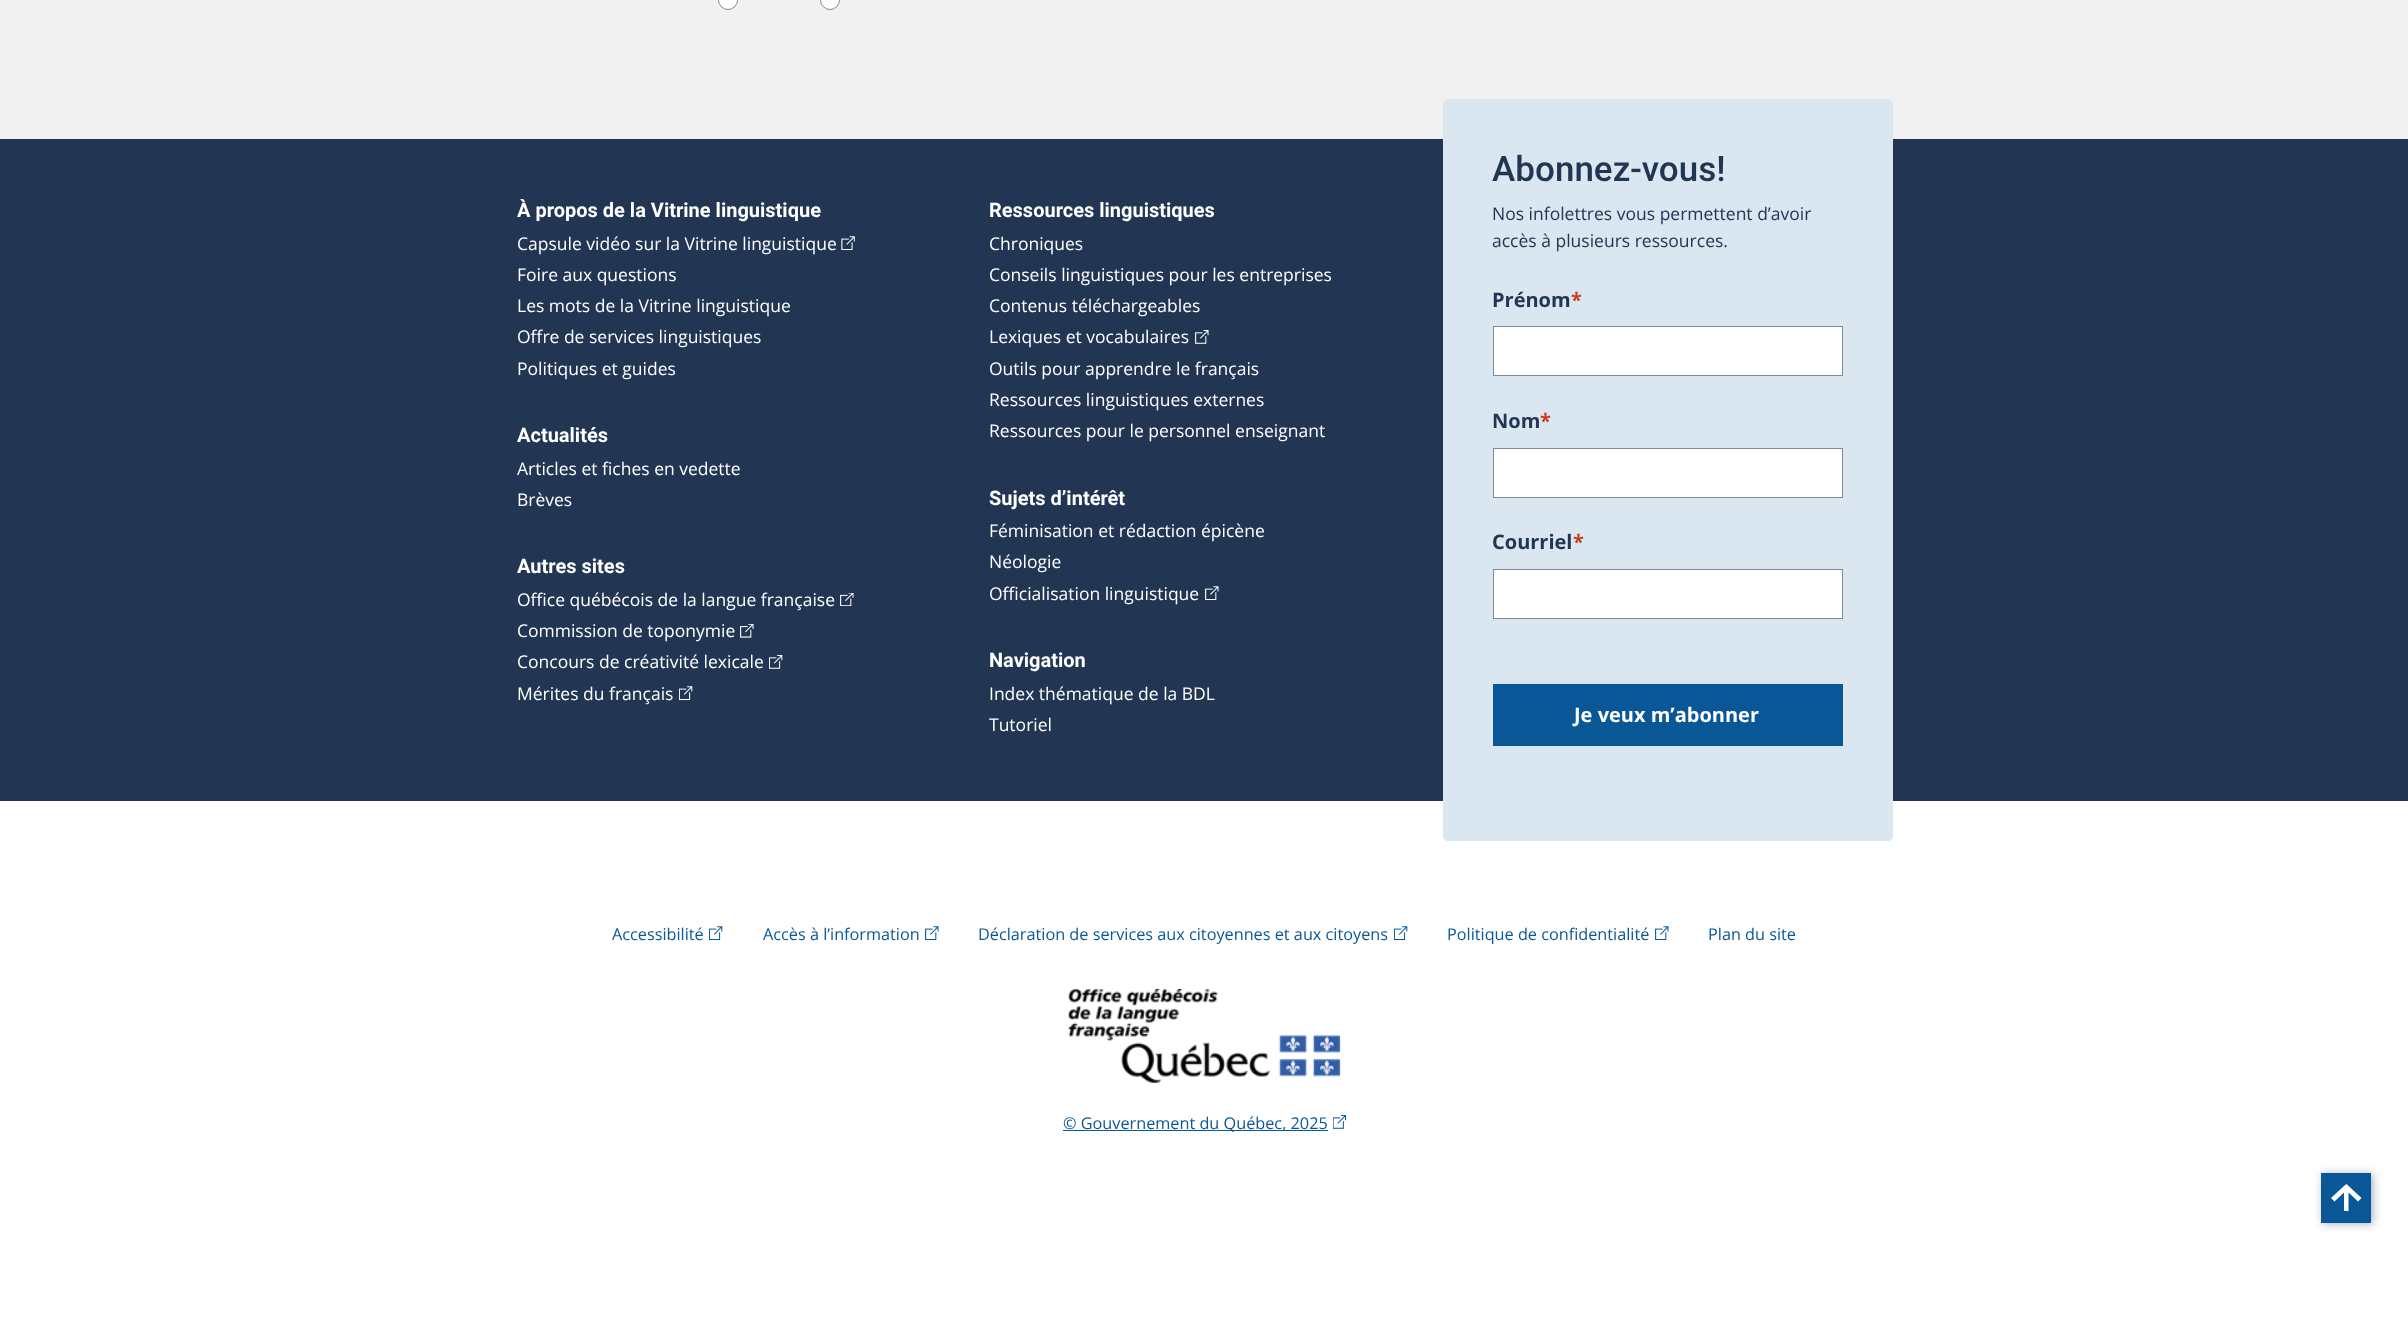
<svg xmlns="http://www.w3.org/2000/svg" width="2408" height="1334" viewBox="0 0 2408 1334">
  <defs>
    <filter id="blur1" x="-50%" y="-200%" width="200%" height="500%"><feGaussianBlur stdDeviation="4.5"/></filter>
  </defs>
  <rect width="100%" height="100%" fill="#ffffff"/>
  <rect x="0" y="0" width="2408" height="139" fill="#f2f1f1"/>
  <circle cx="728" cy="0" r="9.5" fill="#ffffff" stroke="#808a9d"/>
  <circle cx="830" cy="0" r="9.5" fill="#ffffff" stroke="#808a9d"/>
  <rect x="0" y="139" width="2408" height="662" fill="#223654"/>
  <text x="517" y="217" font-family="Roboto" font-size="20" font-weight="bold" fill="#ffffff">À propos de la Vitrine linguistique</text>
  <text x="517" y="250" font-family="Open Sans" font-size="17.5" fill="#ffffff">Capsule vidéo sur la Vitrine linguistique</text>
  <image x="841" y="236" width="14" height="14" href="img1.png"/>
  <text x="517" y="281" font-family="Open Sans" font-size="17.5" fill="#ffffff">Foire aux questions</text>
  <text x="517" y="312" font-family="Open Sans" font-size="17.5" fill="#ffffff">Les mots de la Vitrine linguistique</text>
  <text x="517" y="343" font-family="Open Sans" font-size="17.5" fill="#ffffff">Offre de services linguistiques</text>
  <text x="517" y="375" font-family="Open Sans" font-size="17.5" fill="#ffffff">Politiques et guides</text>
  <text x="989" y="217" font-family="Roboto" font-size="20" font-weight="bold" fill="#ffffff">Ressources linguistiques</text>
  <text x="989" y="250" font-family="Open Sans" font-size="17.5" fill="#ffffff">Chroniques</text>
  <text x="989" y="281" font-family="Open Sans" font-size="17.5" fill="#ffffff">Conseils linguistiques pour les entreprises</text>
  <text x="989" y="312" font-family="Open Sans" font-size="17.5" fill="#ffffff">Contenus téléchargeables</text>
  <text x="989" y="343" font-family="Open Sans" font-size="17.5" fill="#ffffff">Lexiques et vocabulaires</text>
  <image x="1195" y="330" width="14" height="14" href="img2.png"/>
  <text x="989" y="375" font-family="Open Sans" font-size="17.5" fill="#ffffff">Outils pour apprendre le français</text>
  <text x="989" y="406" font-family="Open Sans" font-size="17.5" fill="#ffffff">Ressources linguistiques externes</text>
  <text x="989" y="437" font-family="Open Sans" font-size="17.5" fill="#ffffff">Ressources pour le personnel enseignant</text>
  <text x="517" y="442" font-family="Roboto" font-size="20" font-weight="bold" fill="#ffffff">Actualités</text>
  <text x="517" y="475" font-family="Open Sans" font-size="17.5" fill="#ffffff">Articles et fiches en vedette</text>
  <text x="517" y="506" font-family="Open Sans" font-size="17.5" fill="#ffffff">Brèves</text>
  <text x="517" y="573" font-family="Roboto" font-size="20" font-weight="bold" fill="#ffffff">Autres sites</text>
  <text x="517" y="606" font-family="Open Sans" font-size="17.5" fill="#ffffff">Office québécois de la langue française</text>
  <image x="840" y="593" width="14" height="13" href="img3.png"/>
  <text x="517" y="637" font-family="Open Sans" font-size="17.5" fill="#ffffff">Commission de toponymie</text>
  <image x="740" y="624" width="14" height="14" href="img4.png"/>
  <text x="517" y="668" font-family="Open Sans" font-size="17.5" fill="#ffffff">Concours de créativité lexicale</text>
  <image x="769" y="655" width="14" height="14" href="img5.png"/>
  <text x="517" y="700" font-family="Open Sans" font-size="17.5" fill="#ffffff">Mérites du français</text>
  <image x="679" y="686" width="14" height="14" href="img6.png"/>
  <text x="989" y="505" font-family="Roboto" font-size="20" font-weight="bold" fill="#ffffff">Sujets d’intérêt</text>
  <text x="989" y="537" font-family="Open Sans" font-size="17.5" fill="#ffffff">Féminisation et rédaction épicène</text>
  <text x="989" y="568" font-family="Open Sans" font-size="17.5" fill="#ffffff">Néologie</text>
  <text x="989" y="600" font-family="Open Sans" font-size="17.5" fill="#ffffff">Officialisation linguistique</text>
  <image x="1205" y="586" width="14" height="14" href="img7.png"/>
  <text x="989" y="667" font-family="Roboto" font-size="20" font-weight="bold" fill="#ffffff">Navigation</text>
  <text x="989" y="700" font-family="Open Sans" font-size="17.5" fill="#ffffff">Index thématique de la BDL</text>
  <text x="989" y="731" font-family="Open Sans" font-size="17.5" fill="#ffffff">Tutoriel</text>
  <rect x="1443" y="99" width="450" height="742" rx="5" fill="#dae6f0"/>
  <text x="1492" y="181" font-family="Roboto" font-size="35" font-weight="500" fill="#223654">Abonnez-vous!</text>
  <text x="1492" y="220" font-family="Open Sans" font-size="17.5" fill="#223654">Nos infolettres vous permettent d’avoir</text>
  <text x="1492" y="247" font-family="Open Sans" font-size="17.5" fill="#223654">accès à plusieurs ressources.</text>
  <text x="1492" y="307" font-family="Open Sans" font-size="20" font-weight="bold" fill="#223654">Prénom</text>
  <text x="1571" y="307" font-family="Open Sans" font-size="20" font-weight="bold" fill="#cb381f">*</text>
  <rect x="1493.5" y="326.5" width="349" height="49" fill="#ffffff" stroke="#808a9d"/>
  <text x="1492" y="428" font-family="Open Sans" font-size="20" font-weight="bold" fill="#223654">Nom</text>
  <text x="1540" y="428" font-family="Open Sans" font-size="20" font-weight="bold" fill="#cb381f">*</text>
  <rect x="1493.5" y="448.5" width="349" height="49" fill="#ffffff" stroke="#808a9d"/>
  <text x="1492" y="549" font-family="Open Sans" font-size="20" font-weight="bold" fill="#223654">Courriel</text>
  <text x="1573" y="549" font-family="Open Sans" font-size="20" font-weight="bold" fill="#cb381f">*</text>
  <rect x="1493.5" y="569.5" width="349" height="49" fill="#ffffff" stroke="#808a9d"/>
  <rect x="1493" y="684" width="350" height="62" fill="#095797"/>
  <text x="1574" y="722" font-family="Open Sans" font-size="20" font-weight="bold" fill="#ffffff">Je veux m’abonner</text>
  <text x="612" y="940" font-family="Open Sans" font-size="16.25" fill="#095797">Accessibilité</text>
  <image x="709" y="926" width="14" height="14" href="img8.png"/>
  <text x="763" y="940" font-family="Open Sans" font-size="16.25" fill="#095797">Accès à l’information</text>
  <image x="925" y="926" width="14" height="14" href="img9.png"/>
  <text x="978" y="940" font-family="Open Sans" font-size="16.25" fill="#095797">Déclaration de services aux citoyennes et aux citoyens</text>
  <image x="1394" y="926" width="14" height="14" href="img8.png"/>
  <text x="1447" y="940" font-family="Open Sans" font-size="16.25" fill="#095797">Politique de confidentialité</text>
  <image x="1655" y="926" width="14" height="14" href="img9.png"/>
  <text x="1708" y="940" font-family="Open Sans" font-size="16.25" fill="#095797">Plan du site</text>
  <image x="1068" y="988" width="273" height="95" href="img10.png"/>
  <rect x="1063" y="1130" width="265" height="1" fill="#095797"/>
  <text x="1063" y="1129" font-family="Open Sans" font-size="16.25" fill="#095797">© Gouvernement du Québec, 2025</text>
  <image x="1333" y="1115" width="13" height="14" href="img11.png"/>
  <rect x="2323" y="1174" width="50" height="50" fill="#223654" fill-opacity="0.4" filter="url(#blur1)"/>
  <rect x="2321" y="1173" width="50" height="50" fill="#095797"/>
  <path d="M2344.5 1185.5L2331 1198L2334.5 1201.5L2344 1192.5V1211H2348.5V1192.5L2358 1201.5L2361.5 1198L2346.5 1184Z" fill="#ffffff"/>
</svg>
